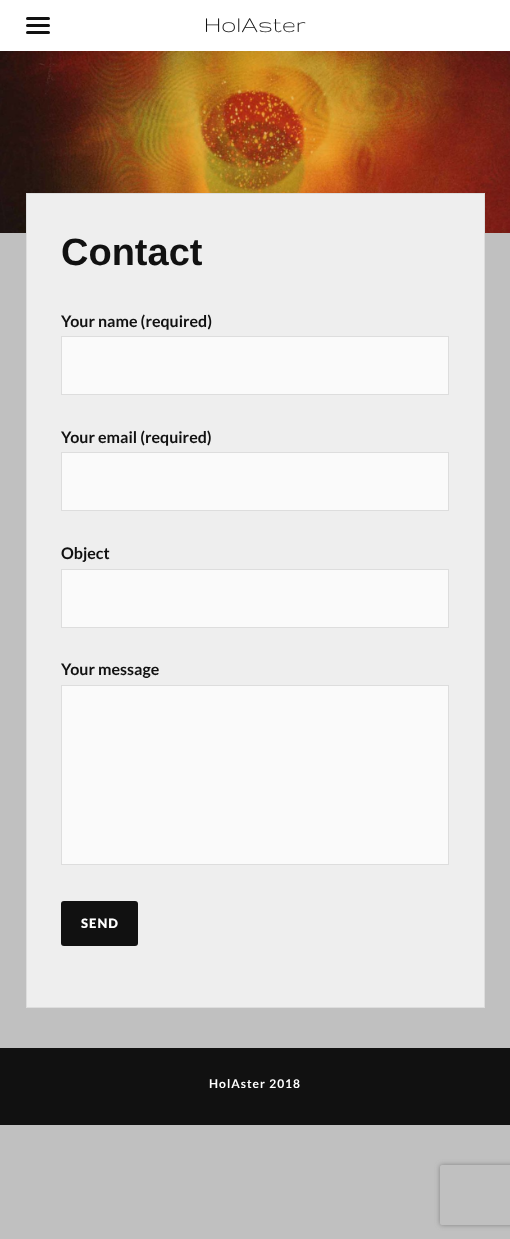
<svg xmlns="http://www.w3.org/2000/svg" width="510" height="1239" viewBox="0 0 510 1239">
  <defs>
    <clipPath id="clip1"><path d="M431 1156H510V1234H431ZM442 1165H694C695 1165 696 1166 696 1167V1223C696 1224 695 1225 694 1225H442C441 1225 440 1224 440 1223V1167C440 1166 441 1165 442 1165Z" clip-rule="evenodd"/></clipPath>
    <filter id="blur1" x="-50%" y="-200%" width="200%" height="500%"><feGaussianBlur stdDeviation="2.5"/></filter>
  </defs>
  <rect width="100%" height="100%" fill="#c0c0c0"/>
  <rect x="0" y="0" width="510" height="51" fill="#ffffff"/>
  <rect x="26" y="17" width="24" height="3" rx="1.5" fill="#111111"/>
  <rect x="26" y="24" width="24" height="3" rx="1.5" fill="#111111"/>
  <rect x="26" y="31" width="24" height="3" rx="1.5" fill="#111111"/>
  <text x="204" y="32" font-family="Gruppo" font-size="25.5" fill="#111111">HolAster</text>
  <image x="0" y="51" width="510" height="182" href="img1.png"/>
  <rect x="26.5" y="193.5" width="458" height="814" fill="#eeeeee" stroke="#dddddd"/>
  <text x="61" y="265" font-family="Liberation Sans" font-size="38" font-weight="bold" fill="#111111">Contact</text>
  <text x="61" y="327" font-family="Lato" font-size="16" font-weight="bold" fill="#111111">Your name (required)</text>
  <rect x="61.5" y="336.5" width="387" height="58" fill="#fafafa" stroke="#dddddd"/>
  <text x="61" y="443" font-family="Lato" font-size="16" font-weight="bold" fill="#111111">Your email (required)</text>
  <rect x="61.5" y="452.5" width="387" height="58" fill="#fafafa" stroke="#dddddd"/>
  <text x="61" y="559" font-family="Lato" font-size="16" font-weight="bold" fill="#111111">Object</text>
  <rect x="61.5" y="569.5" width="387" height="58" fill="#fafafa" stroke="#dddddd"/>
  <text x="61" y="675" font-family="Lato" font-size="16" font-weight="bold" fill="#111111">Your message</text>
  <rect x="61.5" y="685.5" width="387" height="179" fill="#fafafa" stroke="#dddddd"/>
  <rect x="61" y="901" width="77" height="45" rx="3" fill="#111111"/>
  <text x="81" y="928" font-family="Lato" font-size="13" font-weight="900" letter-spacing="1" fill="#ffffff">SEND</text>
  <rect x="0" y="1048" width="510" height="77" fill="#111111"/>
  <text x="209" y="1088" font-family="Lato" font-size="12" font-weight="bold" letter-spacing="1" fill="#ffffff">HolAster 2018</text>
  <g clip-path="url(#clip1)">
    <rect x="440" y="1165" width="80" height="60" rx="2" fill="#808080" filter="url(#blur1)"/>
  </g>
</svg>
